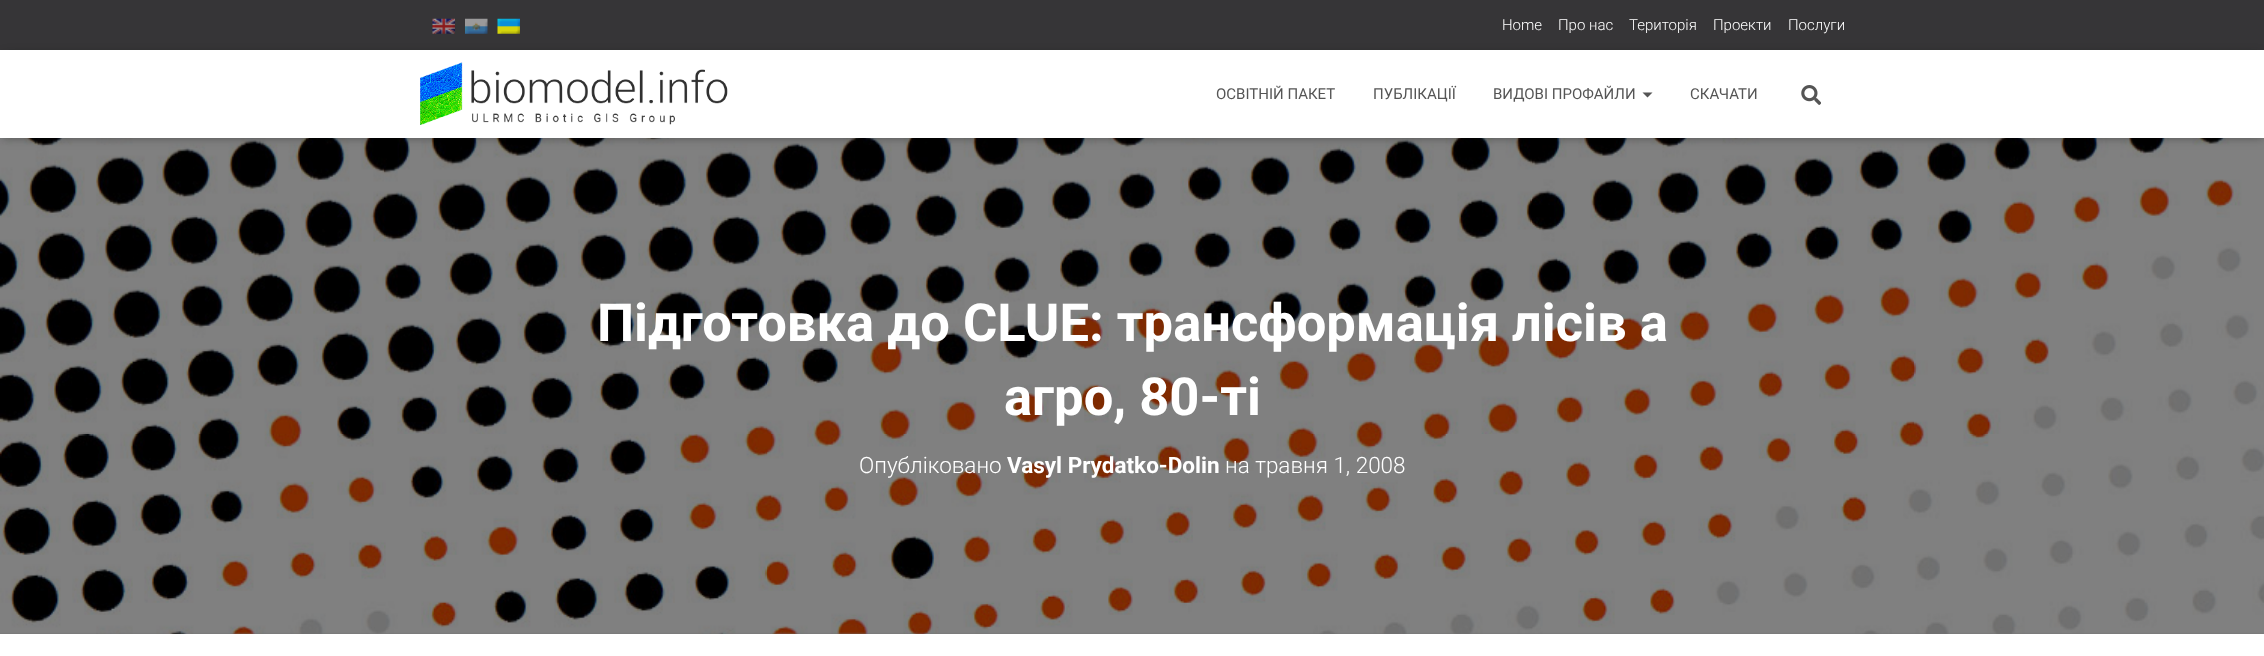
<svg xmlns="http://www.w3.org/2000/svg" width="2264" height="656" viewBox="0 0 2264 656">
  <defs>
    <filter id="blur1" x="-50%" y="-200%" width="200%" height="500%"><feGaussianBlur stdDeviation="3"/></filter>
    <filter id="blur2" x="-50%" y="-200%" width="200%" height="500%"><feGaussianBlur stdDeviation="6"/></filter>
  </defs>
  <rect width="100%" height="100%" fill="#737373"/>
  <rect x="0" y="0" width="2264" height="50" fill="#363537"/>
  <image x="432" y="18" width="23" height="16" href="img1.png"/>
  <image x="465" y="18" width="23" height="16" href="img2.png"/>
  <image x="497" y="18" width="23" height="16" href="img3.png"/>
  <text x="1502" y="30" font-family="Roboto" font-size="15" font-weight="300" fill="#ffffff">Home</text>
  <text x="1558" y="30" font-family="Roboto" font-size="15" font-weight="300" fill="#ffffff">Про нас</text>
  <text x="1629" y="30" font-family="Roboto" font-size="15" font-weight="300" fill="#ffffff">Територія</text>
  <text x="1713" y="30" font-family="Roboto" font-size="15" font-weight="300" fill="#ffffff">Проекти</text>
  <text x="1788" y="30" font-family="Roboto" font-size="15" font-weight="300" fill="#ffffff">Послуги</text>
  <image x="0" y="138" width="2264" height="496" href="img6.png"/>
  <rect x="3" y="58" width="2260" height="82" fill="#000000" fill-opacity="0.1" filter="url(#blur1)"/>
  <rect x="0" y="51" width="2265" height="88" fill="#000000" fill-opacity="0.12" filter="url(#blur2)"/>
  <rect x="8" y="59" width="2250" height="72" fill="#000000" fill-opacity="0.42" filter="url(#blur2)"/>
  <rect x="0" y="50" width="2264" height="88" fill="#ffffff"/>
  <image x="420" y="62" width="308" height="63" href="img4.png"/>
  <text x="1216" y="99" font-family="Roboto" font-size="15" fill="#555555">ОСВІТНІЙ ПАКЕТ</text>
  <text x="1373" y="99" font-family="Roboto" font-size="15" fill="#555555">ПУБЛІКАЦІЇ</text>
  <text x="1493" y="99" font-family="Roboto" font-size="15" fill="#555555">ВИДОВІ ПРОФАЙЛИ</text>
  <path d="M1642.5 92.5H1652.5L1647.5 97.5Z" fill="#555555"/>
  <text x="1690" y="99" font-family="Roboto" font-size="15" fill="#555555">СКАЧАТИ</text>
  <image x="1801" y="85" width="20" height="20" href="img5.png"/>
  <text x="597" y="341" font-family="Roboto" font-size="52.5" font-weight="bold" fill="#ffffff">Підготовка до CLUE: трансформація лісів а</text>
  <text x="1004" y="415" font-family="Roboto" font-size="52.5" font-weight="bold" fill="#ffffff">агро, 80-ті</text>
  <text x="859" y="473" font-family="Roboto" font-size="22.5" font-weight="300" fill="#ffffff">Опубліковано</text>
  <text x="1007" y="473" font-family="Roboto" font-size="22.5" font-weight="bold" fill="#ffffff">Vasyl Prydatko-Dolin</text>
  <text x="1225" y="473" font-family="Roboto" font-size="22.5" font-weight="300" fill="#ffffff">на травня 1, 2008</text>
  <rect x="0" y="634" width="2264" height="22" fill="#ffffff"/>
</svg>
